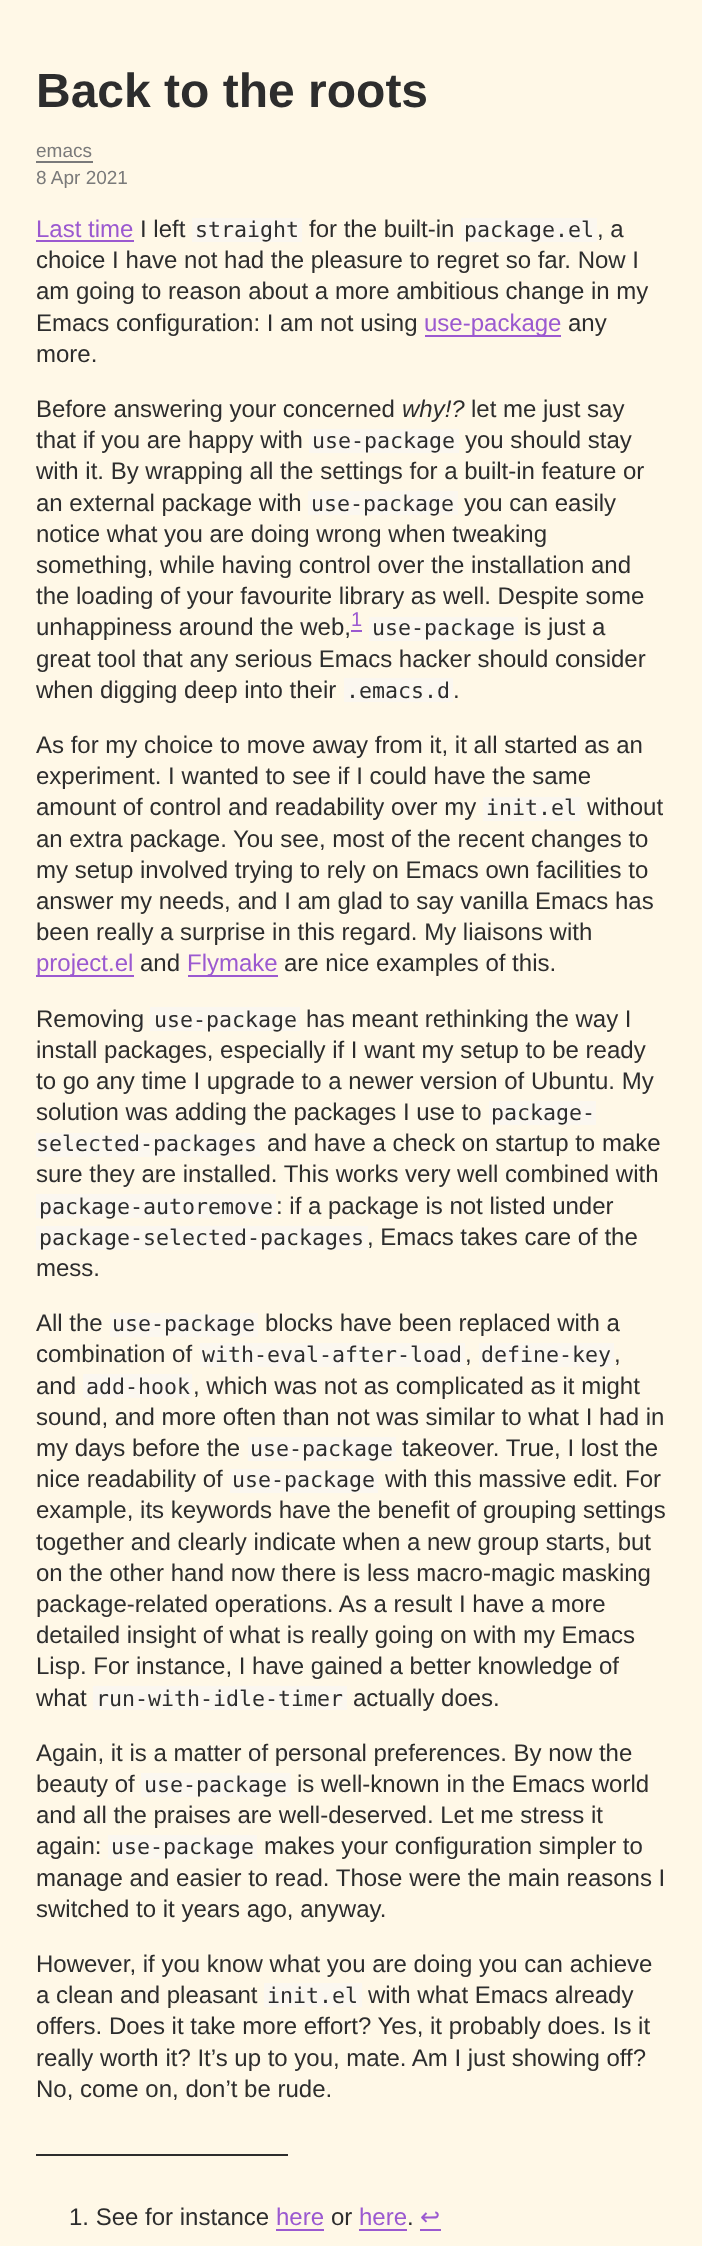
<svg xmlns="http://www.w3.org/2000/svg" width="702" height="2246" viewBox="0 0 702 2246">
  <rect width="100%" height="100%" fill="#fff8e7"/>
  <text x="36" y="107" font-family="Liberation Sans" font-size="48" font-weight="bold" fill="#2d2d2d">Back to the roots</text>
  <text x="36" y="157" font-family="Liberation Sans" font-size="19" fill="#7a7a7a">emacs</text>
  <rect x="36" y="161" width="57" height="2" fill="#7a7a7a"/>
  <text x="36" y="184" font-family="Liberation Sans" font-size="19" fill="#7a7a7a">8 Apr 2021</text>
  <text x="36" y="237" font-family="Liberation Sans" font-size="24" fill="#9b59d0">Last time</text>
  <rect x="36" y="240" width="98" height="2" fill="#9b59d0"/>
  <text x="140" y="237" font-family="Liberation Sans" font-size="24" fill="#2d2d2d">I left</text>
  <rect x="192" y="218" width="110" height="24" fill="#fbf7f0"/>
  <text x="195" y="237" font-family="DejaVu Sans Mono" font-size="21.6" fill="#2d2d2d">straight</text>
  <text x="309" y="237" font-family="Liberation Sans" font-size="24" fill="#2d2d2d">for the built-in</text>
  <rect x="461" y="218" width="136" height="24" fill="#fbf7f0"/>
  <text x="464" y="237" font-family="DejaVu Sans Mono" font-size="21.6" fill="#2d2d2d">package.el</text>
  <text x="597" y="237" font-family="Liberation Sans" font-size="24" fill="#2d2d2d">, a</text>
  <text x="36" y="268" font-family="Liberation Sans" font-size="24" fill="#2d2d2d">choice I have not had the pleasure to regret so far. Now I</text>
  <text x="36" y="299" font-family="Liberation Sans" font-size="24" fill="#2d2d2d">am going to reason about a more ambitious change in my</text>
  <text x="36" y="331" font-family="Liberation Sans" font-size="24" fill="#2d2d2d">Emacs configuration: I am not using</text>
  <rect x="425" y="335" width="136" height="2" fill="#9b59d0"/>
  <text x="424" y="331" font-family="Liberation Sans" font-size="24" fill="#9b59d0">use-package</text>
  <text x="568" y="331" font-family="Liberation Sans" font-size="24" fill="#2d2d2d">any</text>
  <text x="36" y="362" font-family="Liberation Sans" font-size="24" fill="#2d2d2d">more.</text>
  <text x="36" y="417" font-family="Liberation Sans" font-size="24" fill="#2d2d2d">Before answering your concerned</text>
  <text x="402" y="417" font-family="Liberation Sans" font-size="24" font-style="italic" fill="#2d2d2d">why!?</text>
  <text x="471" y="417" font-family="Liberation Sans" font-size="24" fill="#2d2d2d">let me just say</text>
  <text x="36" y="448" font-family="Liberation Sans" font-size="24" fill="#2d2d2d">that if you are happy with</text>
  <rect x="309" y="429" width="150" height="24" fill="#fbf7f0"/>
  <text x="312" y="448" font-family="DejaVu Sans Mono" font-size="21.6" fill="#2d2d2d">use-package</text>
  <text x="465" y="448" font-family="Liberation Sans" font-size="24" fill="#2d2d2d">you should stay</text>
  <text x="36" y="479" font-family="Liberation Sans" font-size="24" fill="#2d2d2d">with it. By wrapping all the settings for a built-in feature or</text>
  <text x="36" y="511" font-family="Liberation Sans" font-size="24" fill="#2d2d2d">an external package with</text>
  <rect x="308" y="491" width="150" height="24" fill="#fbf7f0"/>
  <text x="311" y="511" font-family="DejaVu Sans Mono" font-size="21.6" fill="#2d2d2d">use-package</text>
  <text x="464" y="511" font-family="Liberation Sans" font-size="24" fill="#2d2d2d">you can easily</text>
  <text x="36" y="542" font-family="Liberation Sans" font-size="24" fill="#2d2d2d">notice what you are doing wrong when tweaking</text>
  <text x="36" y="573" font-family="Liberation Sans" font-size="24" fill="#2d2d2d">something, while having control over the installation and</text>
  <text x="36" y="604" font-family="Liberation Sans" font-size="24" fill="#2d2d2d">the loading of your favourite library as well. Despite some</text>
  <text x="36" y="635" font-family="Liberation Sans" font-size="24" fill="#2d2d2d">unhappiness around the web,</text>
  <text x="351" y="626" font-family="Liberation Sans" font-size="20" fill="#9b59d0">1</text>
  <rect x="351" y="630" width="11" height="2" fill="#9b59d0"/>
  <rect x="369" y="617" width="149" height="24" fill="#fbf7f0"/>
  <text x="372" y="635" font-family="DejaVu Sans Mono" font-size="21.6" fill="#2d2d2d">use-package</text>
  <text x="524" y="635" font-family="Liberation Sans" font-size="24" fill="#2d2d2d">is just a</text>
  <text x="36" y="667" font-family="Liberation Sans" font-size="24" fill="#2d2d2d">great tool that any serious Emacs hacker should consider</text>
  <text x="36" y="698" font-family="Liberation Sans" font-size="24" fill="#2d2d2d">when digging deep into their</text>
  <rect x="344" y="678" width="109" height="24" fill="#fbf7f0"/>
  <text x="346" y="698" font-family="DejaVu Sans Mono" font-size="21.6" fill="#2d2d2d">.emacs.d</text>
  <text x="453" y="698" font-family="Liberation Sans" font-size="24" fill="#2d2d2d">.</text>
  <text x="36" y="753" font-family="Liberation Sans" font-size="24" fill="#2d2d2d">As for my choice to move away from it, it all started as an</text>
  <text x="36" y="784" font-family="Liberation Sans" font-size="24" fill="#2d2d2d">experiment. I wanted to see if I could have the same</text>
  <text x="36" y="815" font-family="Liberation Sans" font-size="24" fill="#2d2d2d">amount of control and readability over my</text>
  <rect x="483" y="797" width="98" height="24" fill="#fbf7f0"/>
  <text x="486" y="815" font-family="DejaVu Sans Mono" font-size="21.6" fill="#2d2d2d">init.el</text>
  <text x="587" y="815" font-family="Liberation Sans" font-size="24" fill="#2d2d2d">without</text>
  <text x="36" y="847" font-family="Liberation Sans" font-size="24" fill="#2d2d2d">an extra package. You see, most of the recent changes to</text>
  <text x="36" y="878" font-family="Liberation Sans" font-size="24" fill="#2d2d2d">my setup involved trying to rely on Emacs own facilities to</text>
  <text x="36" y="909" font-family="Liberation Sans" font-size="24" fill="#2d2d2d">answer my needs, and I am glad to say vanilla Emacs has</text>
  <text x="36" y="940" font-family="Liberation Sans" font-size="24" fill="#2d2d2d">been really a surprise in this regard. My liaisons with</text>
  <rect x="36" y="975" width="98" height="2" fill="#9b59d0"/>
  <text x="36" y="971" font-family="Liberation Sans" font-size="24" fill="#9b59d0">project.el</text>
  <text x="140" y="971" font-family="Liberation Sans" font-size="24" fill="#2d2d2d">and</text>
  <rect x="188" y="975" width="90" height="2" fill="#9b59d0"/>
  <text x="187" y="971" font-family="Liberation Sans" font-size="24" fill="#9b59d0">Flymake</text>
  <text x="284" y="971" font-family="Liberation Sans" font-size="24" fill="#2d2d2d">are nice examples of this.</text>
  <text x="36" y="1027" font-family="Liberation Sans" font-size="24" fill="#2d2d2d">Removing</text>
  <rect x="150" y="1007" width="150" height="24" fill="#fbf7f0"/>
  <text x="154" y="1027" font-family="DejaVu Sans Mono" font-size="21.6" fill="#2d2d2d">use-package</text>
  <text x="306" y="1027" font-family="Liberation Sans" font-size="24" fill="#2d2d2d">has meant rethinking the way I</text>
  <text x="36" y="1058" font-family="Liberation Sans" font-size="24" fill="#2d2d2d">install packages, especially if I want my setup to be ready</text>
  <text x="36" y="1089" font-family="Liberation Sans" font-size="24" fill="#2d2d2d">to go any time I upgrade to a newer version of Ubuntu. My</text>
  <text x="36" y="1120" font-family="Liberation Sans" font-size="24" fill="#2d2d2d">solution was adding the packages I use to</text>
  <rect x="489" y="1101" width="107" height="24" fill="#fbf7f0"/>
  <text x="491" y="1120" font-family="DejaVu Sans Mono" font-size="21.6" fill="#2d2d2d">package-</text>
  <rect x="36" y="1133" width="224" height="24" fill="#fbf7f0"/>
  <text x="36" y="1151" font-family="DejaVu Sans Mono" font-size="21.6" fill="#2d2d2d">selected-packages</text>
  <text x="267" y="1151" font-family="Liberation Sans" font-size="24" fill="#2d2d2d">and have a check on startup to make</text>
  <text x="36" y="1182" font-family="Liberation Sans" font-size="24" fill="#2d2d2d">sure they are installed. This works very well combined with</text>
  <rect x="36" y="1194" width="240" height="24" fill="#fbf7f0"/>
  <text x="39" y="1214" font-family="DejaVu Sans Mono" font-size="21.6" fill="#2d2d2d">package-autoremove</text>
  <text x="276" y="1214" font-family="Liberation Sans" font-size="24" fill="#2d2d2d">: if a package is not listed under</text>
  <rect x="36" y="1226" width="332" height="24" fill="#fbf7f0"/>
  <text x="39" y="1245" font-family="DejaVu Sans Mono" font-size="21.6" fill="#2d2d2d">package-selected-packages</text>
  <text x="367" y="1245" font-family="Liberation Sans" font-size="24" fill="#2d2d2d">, Emacs takes care of the</text>
  <text x="36" y="1276" font-family="Liberation Sans" font-size="24" fill="#2d2d2d">mess.</text>
  <text x="36" y="1331" font-family="Liberation Sans" font-size="24" fill="#2d2d2d">All the</text>
  <rect x="110" y="1313" width="148" height="24" fill="#fbf7f0"/>
  <text x="112" y="1331" font-family="DejaVu Sans Mono" font-size="21.6" fill="#2d2d2d">use-package</text>
  <text x="265" y="1331" font-family="Liberation Sans" font-size="24" fill="#2d2d2d">blocks have been replaced with a</text>
  <text x="36" y="1362" font-family="Liberation Sans" font-size="24" fill="#2d2d2d">combination of</text>
  <rect x="200" y="1343" width="265" height="24" fill="#fbf7f0"/>
  <text x="202" y="1362" font-family="DejaVu Sans Mono" font-size="21.6" fill="#2d2d2d">with-eval-after-load</text>
  <text x="465" y="1362" font-family="Liberation Sans" font-size="24" fill="#2d2d2d">,</text>
  <rect x="479" y="1343" width="135" height="24" fill="#fbf7f0"/>
  <text x="481" y="1362" font-family="DejaVu Sans Mono" font-size="21.6" fill="#2d2d2d">define-key</text>
  <text x="614" y="1362" font-family="Liberation Sans" font-size="24" fill="#2d2d2d">,</text>
  <text x="36" y="1394" font-family="Liberation Sans" font-size="24" fill="#2d2d2d">and</text>
  <rect x="83" y="1374" width="109" height="24" fill="#fbf7f0"/>
  <text x="86" y="1394" font-family="DejaVu Sans Mono" font-size="21.6" fill="#2d2d2d">add-hook</text>
  <text x="193" y="1394" font-family="Liberation Sans" font-size="24" fill="#2d2d2d">, which was not as complicated as it might</text>
  <text x="36" y="1425" font-family="Liberation Sans" font-size="24" fill="#2d2d2d">sound, and more often than not was similar to what I had in</text>
  <text x="36" y="1456" font-family="Liberation Sans" font-size="24" fill="#2d2d2d">my days before the</text>
  <rect x="248" y="1437" width="148" height="24" fill="#fbf7f0"/>
  <text x="250" y="1456" font-family="DejaVu Sans Mono" font-size="21.6" fill="#2d2d2d">use-package</text>
  <text x="402" y="1456" font-family="Liberation Sans" font-size="24" fill="#2d2d2d">takeover. True, I lost the</text>
  <text x="36" y="1487" font-family="Liberation Sans" font-size="24" fill="#2d2d2d">nice readability of</text>
  <rect x="230" y="1469" width="148" height="24" fill="#fbf7f0"/>
  <text x="232" y="1487" font-family="DejaVu Sans Mono" font-size="21.6" fill="#2d2d2d">use-package</text>
  <text x="385" y="1487" font-family="Liberation Sans" font-size="24" fill="#2d2d2d">with this massive edit. For</text>
  <text x="36" y="1518" font-family="Liberation Sans" font-size="24" fill="#2d2d2d">example, its keywords have the benefit of grouping settings</text>
  <text x="36" y="1550" font-family="Liberation Sans" font-size="24" fill="#2d2d2d">together and clearly indicate when a new group starts, but</text>
  <text x="36" y="1581" font-family="Liberation Sans" font-size="24" fill="#2d2d2d">on the other hand now there is less macro-magic masking</text>
  <text x="36" y="1612" font-family="Liberation Sans" font-size="24" fill="#2d2d2d">package-related operations. As a result I have a more</text>
  <text x="36" y="1643" font-family="Liberation Sans" font-size="24" fill="#2d2d2d">detailed insight of what is really going on with my Emacs</text>
  <text x="36" y="1674" font-family="Liberation Sans" font-size="24" fill="#2d2d2d">Lisp. For instance, I have gained a better knowledge of</text>
  <text x="36" y="1706" font-family="Liberation Sans" font-size="24" fill="#2d2d2d">what</text>
  <rect x="93" y="1686" width="254" height="24" fill="#fbf7f0"/>
  <text x="96" y="1706" font-family="DejaVu Sans Mono" font-size="21.6" fill="#2d2d2d">run-with-idle-timer</text>
  <text x="353" y="1706" font-family="Liberation Sans" font-size="24" fill="#2d2d2d">actually does.</text>
  <text x="36" y="1761" font-family="Liberation Sans" font-size="24" fill="#2d2d2d">Again, it is a matter of personal preferences. By now the</text>
  <text x="36" y="1792" font-family="Liberation Sans" font-size="24" fill="#2d2d2d">beauty of</text>
  <rect x="141" y="1773" width="150" height="24" fill="#fbf7f0"/>
  <text x="144" y="1792" font-family="DejaVu Sans Mono" font-size="21.6" fill="#2d2d2d">use-package</text>
  <text x="297" y="1792" font-family="Liberation Sans" font-size="24" fill="#2d2d2d">is well-known in the Emacs world</text>
  <text x="36" y="1823" font-family="Liberation Sans" font-size="24" fill="#2d2d2d">and all the praises are well-deserved. Let me stress it</text>
  <text x="36" y="1854" font-family="Liberation Sans" font-size="24" fill="#2d2d2d">again:</text>
  <rect x="108" y="1835" width="149" height="24" fill="#fbf7f0"/>
  <text x="111" y="1854" font-family="DejaVu Sans Mono" font-size="21.6" fill="#2d2d2d">use-package</text>
  <text x="264" y="1854" font-family="Liberation Sans" font-size="24" fill="#2d2d2d">makes your configuration simpler to</text>
  <text x="36" y="1886" font-family="Liberation Sans" font-size="24" fill="#2d2d2d">manage and easier to read. Those were the main reasons I</text>
  <text x="36" y="1917" font-family="Liberation Sans" font-size="24" fill="#2d2d2d">switched to it years ago, anyway.</text>
  <text x="36" y="1972" font-family="Liberation Sans" font-size="24" fill="#2d2d2d">However, if you know what you are doing you can achieve</text>
  <text x="36" y="2003" font-family="Liberation Sans" font-size="24" fill="#2d2d2d">a clean and pleasant</text>
  <rect x="264" y="1983" width="98" height="24" fill="#fbf7f0"/>
  <text x="267" y="2003" font-family="DejaVu Sans Mono" font-size="21.6" fill="#2d2d2d">init.el</text>
  <text x="368" y="2003" font-family="Liberation Sans" font-size="24" fill="#2d2d2d">with what Emacs already</text>
  <text x="36" y="2034" font-family="Liberation Sans" font-size="24" fill="#2d2d2d">offers. Does it take more effort? Yes, it probably does. Is it</text>
  <text x="36" y="2066" font-family="Liberation Sans" font-size="24" fill="#2d2d2d">really worth it? It’s up to you, mate. Am I just showing off?</text>
  <text x="36" y="2097" font-family="Liberation Sans" font-size="24" fill="#2d2d2d">No, come on, don’t be rude.</text>
  <rect x="36" y="2154" width="252" height="2" fill="#2d2d2d"/>
  <text x="69" y="2225" font-family="Liberation Sans" font-size="24" fill="#2d2d2d">1. See for instance</text>
  <text x="276" y="2225" font-family="Liberation Sans" font-size="24" fill="#9b59d0">here</text>
  <rect x="276" y="2229" width="48" height="2" fill="#9b59d0"/>
  <text x="331" y="2225" font-family="Liberation Sans" font-size="24" fill="#2d2d2d">or</text>
  <text x="359" y="2225" font-family="Liberation Sans" font-size="24" fill="#9b59d0">here</text>
  <rect x="359" y="2229" width="48" height="2" fill="#9b59d0"/>
  <text x="407" y="2225" font-family="Liberation Sans" font-size="24" fill="#2d2d2d">.</text>
  <text x="420" y="2225" font-family="DejaVu Sans" font-size="24" fill="#9b59d0">↩︎</text>
  <rect x="420" y="2229" width="21" height="2" fill="#9b59d0"/>
</svg>
